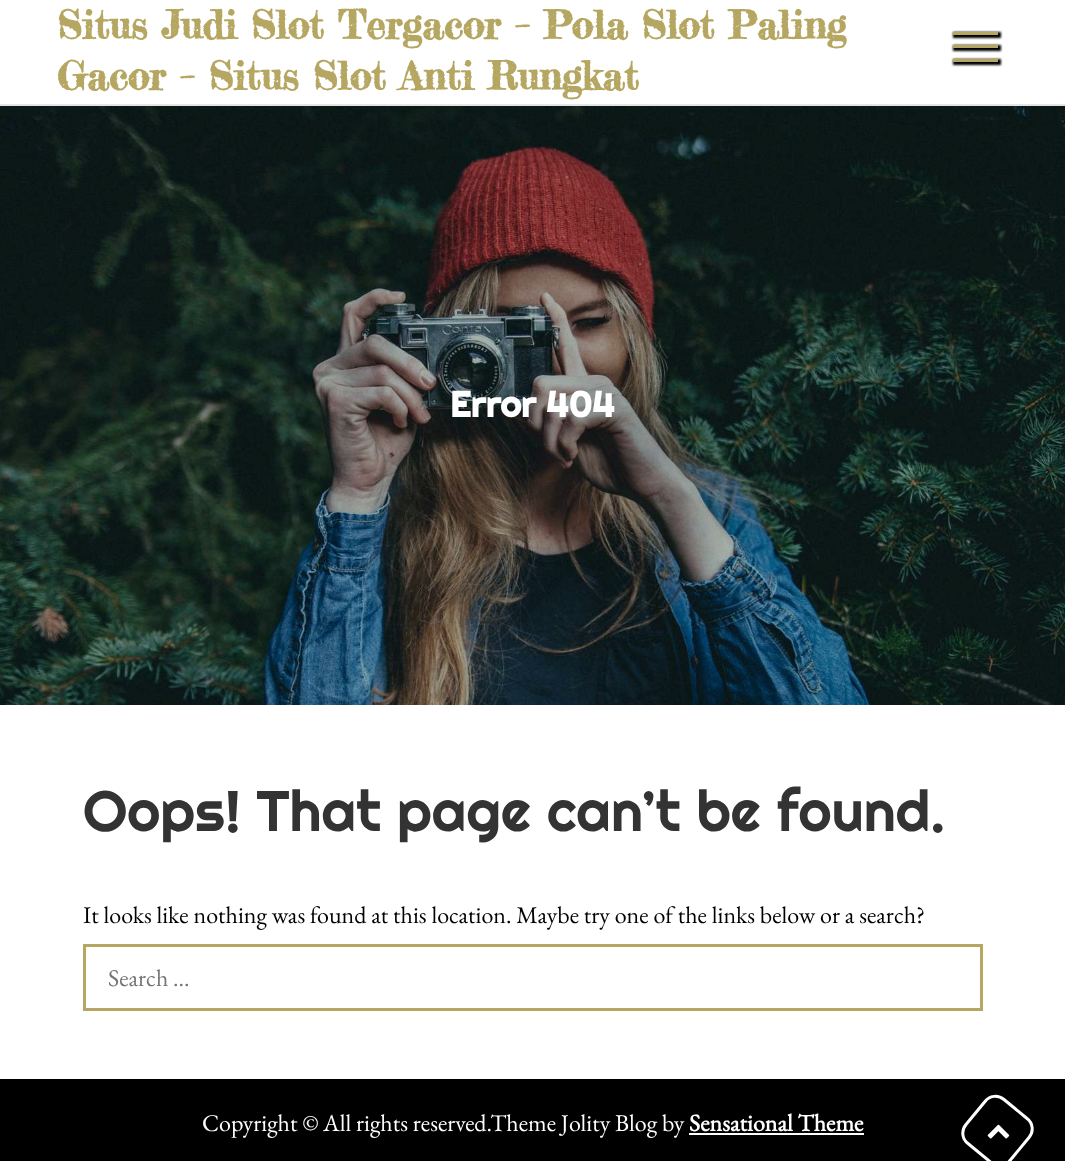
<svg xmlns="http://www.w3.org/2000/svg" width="1065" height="1161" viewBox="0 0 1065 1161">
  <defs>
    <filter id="blur1" x="-50%" y="-200%" width="200%" height="500%"><feGaussianBlur stdDeviation="1"/></filter>
  </defs>
  <rect width="100%" height="100%" fill="#ffffff"/>
  <rect x="0" y="104" width="1065" height="2" fill="#e5e5e5"/>
  <text x="57" y="39" font-family="Fredericka the Great" font-size="39" font-weight="bold" fill="#b5a761">Situs Judi Slot Tergacor – Pola Slot Paling</text>
  <text x="57" y="90" font-family="Fredericka the Great" font-size="39" font-weight="bold" fill="#b5a761">Gacor – Situs Slot Anti Rungkat</text>
  <rect x="953" y="32" width="48" height="6" fill="#000000" filter="url(#blur1)"/>
  <rect x="953" y="32" width="45" height="3" fill="#b5a761"/>
  <rect x="953" y="45" width="48" height="6" fill="#000000" filter="url(#blur1)"/>
  <rect x="953" y="45" width="45" height="3" fill="#b5a761"/>
  <rect x="953" y="59" width="48" height="6" fill="#000000" filter="url(#blur1)"/>
  <rect x="953" y="59" width="45" height="3" fill="#b5a761"/>
  <image x="0" y="106" width="1065" height="599" href="img1.png"/>
  <text x="450" y="417" font-family="Righteous" font-size="36" font-weight="bold" fill="#ffffff">Error 404</text>
  <text x="83" y="831" font-family="Righteous" font-size="57" fill="#333333">Oops! That page can’t be found.</text>
  <text x="83" y="923" font-family="EB Garamond" font-size="24" fill="#000000">It looks like nothing was found at this location. Maybe try one of the links below or a search?</text>
  <rect x="84.5" y="945.5" width="897" height="64" fill="none" stroke="#b5a761" stroke-width="3"/>
  <text x="108" y="986" font-family="EB Garamond" font-size="24" fill="#757575">Search ...</text>
  <rect x="0" y="1079" width="1065" height="82" fill="#000000"/>
  <text x="202" y="1131" font-family="EB Garamond" font-size="24" fill="#ffffff">Copyright © All rights reserved.Theme Jolity Blog by</text>
  <text x="689" y="1131" font-family="EB Garamond" font-size="24" font-weight="bold" fill="#ffffff">Sensational Theme</text>
  <rect x="689" y="1133" width="175" height="2" fill="#ffffff"/>
  <path d="M1004 1099.5L1027 1118.5C1033 1123 1034 1131.5 1029 1137.5L1010 1160.5C1005.5 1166.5 997 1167.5 991 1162.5L968 1143.5C962 1139 961 1130.5 966 1124.5L985 1101.5C989.5 1095.5 998 1094.5 1004 1099.5Z" fill="none" stroke="#ffffff" stroke-width="3"/>
  <image x="987" y="1124" width="23" height="15" href="img2.png"/>
</svg>
